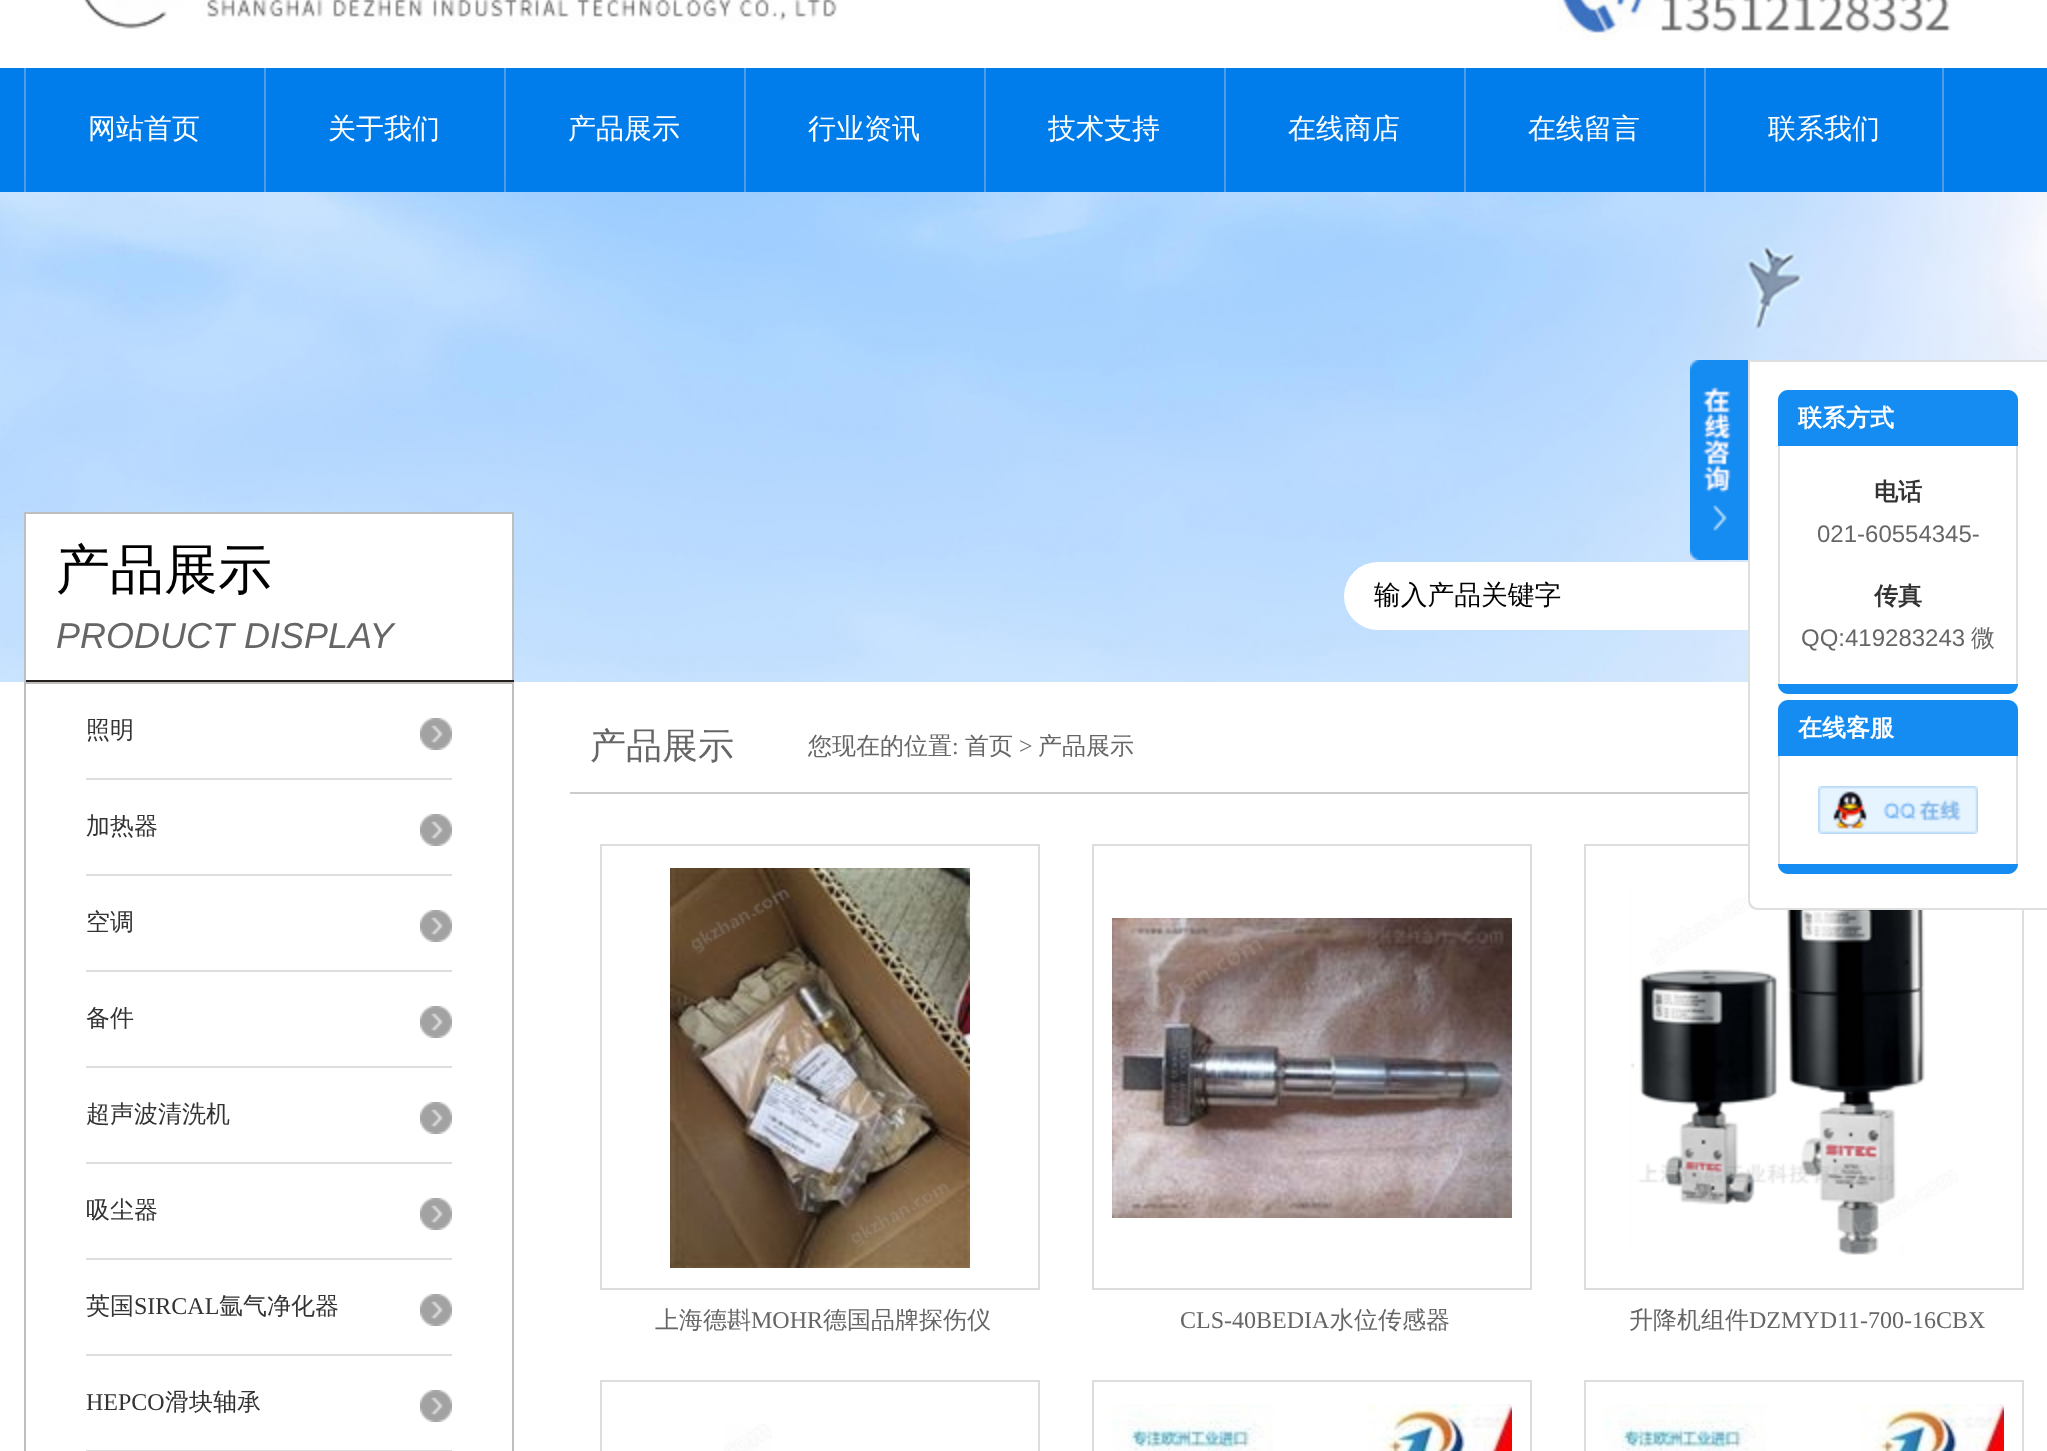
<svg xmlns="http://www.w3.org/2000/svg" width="2047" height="1451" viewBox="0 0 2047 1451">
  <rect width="100%" height="100%" fill="#ffffff"/>
  <image x="83" y="0" width="754" height="29" href="img1.png"/>
  <image x="1558" y="0" width="393" height="40" href="img2.png"/>
  <rect x="0" y="68" width="2047" height="124" fill="#007deb"/>
  <image x="24" y="68" width="2" height="124" href="img3.png"/>
  <text x="88" y="138" font-family="WenQuanYi Zen Hei" font-size="28" font-weight="500" fill="#ffffff">网站首页</text>
  <image x="264" y="68" width="2" height="124" href="img3.png"/>
  <text x="328" y="138" font-family="WenQuanYi Zen Hei" font-size="28" font-weight="500" fill="#ffffff">关于我们</text>
  <image x="504" y="68" width="2" height="124" href="img3.png"/>
  <text x="568" y="138" font-family="WenQuanYi Zen Hei" font-size="28" font-weight="500" fill="#ffffff">产品展示</text>
  <image x="744" y="68" width="2" height="124" href="img3.png"/>
  <text x="808" y="138" font-family="WenQuanYi Zen Hei" font-size="28" font-weight="500" fill="#ffffff">行业资讯</text>
  <image x="984" y="68" width="2" height="124" href="img3.png"/>
  <text x="1048" y="138" font-family="WenQuanYi Zen Hei" font-size="28" font-weight="500" fill="#ffffff">技术支持</text>
  <image x="1224" y="68" width="2" height="124" href="img3.png"/>
  <text x="1288" y="138" font-family="WenQuanYi Zen Hei" font-size="28" font-weight="500" fill="#ffffff">在线商店</text>
  <image x="1464" y="68" width="2" height="124" href="img3.png"/>
  <text x="1528" y="138" font-family="WenQuanYi Zen Hei" font-size="28" font-weight="500" fill="#ffffff">在线留言</text>
  <image x="1704" y="68" width="2" height="124" href="img3.png"/>
  <image x="1942" y="68" width="2" height="124" href="img3.png"/>
  <text x="1768" y="138" font-family="WenQuanYi Zen Hei" font-size="28" font-weight="500" fill="#ffffff">联系我们</text>
  <image x="0" y="192" width="2047" height="490" href="img4.png"/>
  <image x="1690" y="360" width="58" height="200" href="img5.png"/>
  <rect x="1344" y="562" width="478" height="68" rx="34" fill="#ffffff"/>
  <rect x="1585" y="845" width="438" height="444" fill="none" stroke="#dddddd" stroke-width="2"/>
  <image x="1630" y="888" width="328" height="367" href="img10.png"/>
  <path d="M1748 360H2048V910H1758C1752.5 910 1748 905.5 1748 900Z" fill="#ffffff"/>
  <path d="M1748 360H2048V910H1758C1752 910 1748 906 1748 900ZM1750 362H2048V908H1758C1754 908 1750 904 1750 900Z" fill="#dfdfdf" fill-rule="evenodd"/>
  <path d="M1788 390H2008C2013.5 390 2018 394.5 2018 400V446H1778V400C1778 394.5 1782.5 390 1788 390Z" fill="#158cf1"/>
  <text x="1798" y="426" font-family="WenQuanYi Zen Hei" font-size="24" font-weight="bold" fill="#ffffff">联系方式</text>
  <rect x="2016" y="446" width="2" height="238" fill="#dfdfdf"/>
  <rect x="1778" y="446" width="2" height="238" fill="#dfdfdf"/>
  <text x="1874" y="500" font-family="WenQuanYi Zen Hei" font-size="24" font-weight="bold" fill="#333333">电话</text>
  <text x="1817" y="542" font-family="Liberation Sans" font-size="24" fill="#666666">021-60554345-</text>
  <text x="1874" y="604" font-family="WenQuanYi Zen Hei" font-size="24" font-weight="bold" fill="#333333">传真</text>
  <text x="1801" y="646" font-family="Liberation Sans" font-size="24" fill="#666666">QQ:419283243</text>
  <text x="1971" y="646" font-family="WenQuanYi Zen Hei" font-size="24" font-weight="500" fill="#666666">微</text>
  <path d="M1778 684H2018C2018 689.5 2013.5 694 2008 694H1788C1782.5 694 1778 689.5 1778 684Z" fill="#158cf1"/>
  <path d="M1788 700H2008C2013.5 700 2018 704.5 2018 710V756H1778V710C1778 704.5 1782.5 700 1788 700Z" fill="#158cf1"/>
  <text x="1798" y="736" font-family="WenQuanYi Zen Hei" font-size="24" font-weight="bold" fill="#ffffff">在线客服</text>
  <rect x="2016" y="756" width="2" height="108" fill="#dfdfdf"/>
  <rect x="1778" y="756" width="2" height="108" fill="#dfdfdf"/>
  <image x="1818" y="786" width="160" height="48" href="img6.png"/>
  <path d="M1778 864H2018C2018 869.5 2013.5 874 2008 874H1788C1782.5 874 1778 869.5 1778 864Z" fill="#158cf1"/>
  <rect x="26" y="514" width="486" height="166" fill="#ffffff"/>
  <rect x="24" y="512" width="490" height="2" fill="#bebebe"/>
  <rect x="512" y="512" width="2" height="170" fill="#bebebe"/>
  <rect x="24" y="680" width="490" height="2" fill="#23201d"/>
  <rect x="24" y="512" width="2" height="170" fill="#bebebe"/>
  <text x="56" y="588" font-family="WenQuanYi Zen Hei" font-size="54" font-weight="500" fill="#000000">产品展示</text>
  <text x="56" y="648" font-family="Liberation Sans" font-size="36" font-style="italic" fill="#666666">PRODUCT DISPLAY</text>
  <text x="1374" y="604" font-family="WenQuanYi Zen Hei" font-size="26.75" font-weight="500" fill="#000000">输入产品关键字</text>
  <rect x="25" y="683" width="488" height="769" fill="none" stroke="#bebebe" stroke-width="2"/>
  <image x="420" y="718" width="32" height="32" href="img7.png"/>
  <rect x="86" y="778" width="366" height="2" fill="#dddddd"/>
  <text x="86" y="738" font-family="WenQuanYi Zen Hei" font-size="24" font-weight="500" fill="#333333">照明</text>
  <image x="420" y="814" width="32" height="32" href="img7.png"/>
  <rect x="86" y="874" width="366" height="2" fill="#dddddd"/>
  <text x="86" y="834" font-family="WenQuanYi Zen Hei" font-size="24" font-weight="500" fill="#333333">加热器</text>
  <image x="420" y="910" width="32" height="32" href="img7.png"/>
  <rect x="86" y="970" width="366" height="2" fill="#dddddd"/>
  <text x="86" y="930" font-family="WenQuanYi Zen Hei" font-size="24" font-weight="500" fill="#333333">空调</text>
  <image x="420" y="1006" width="32" height="32" href="img7.png"/>
  <rect x="86" y="1066" width="366" height="2" fill="#dddddd"/>
  <text x="86" y="1026" font-family="WenQuanYi Zen Hei" font-size="24" font-weight="500" fill="#333333">备件</text>
  <image x="420" y="1102" width="32" height="32" href="img7.png"/>
  <rect x="86" y="1162" width="366" height="2" fill="#dddddd"/>
  <text x="86" y="1122" font-family="WenQuanYi Zen Hei" font-size="24" font-weight="500" fill="#333333">超声波清洗机</text>
  <image x="420" y="1198" width="32" height="32" href="img7.png"/>
  <rect x="86" y="1258" width="366" height="2" fill="#dddddd"/>
  <text x="86" y="1218" font-family="WenQuanYi Zen Hei" font-size="24" font-weight="500" fill="#333333">吸尘器</text>
  <image x="420" y="1294" width="32" height="32" href="img7.png"/>
  <rect x="86" y="1354" width="366" height="2" fill="#dddddd"/>
  <text x="86" y="1314" font-family="WenQuanYi Zen Hei" font-size="24" font-weight="500" fill="#333333">英国</text>
  <text x="134" y="1314" font-family="Liberation Serif" font-size="24" fill="#333333">SIRCAL</text>
  <text x="219" y="1314" font-family="WenQuanYi Zen Hei" font-size="24" font-weight="500" fill="#333333">氩气净化器</text>
  <image x="420" y="1390" width="32" height="32" href="img7.png"/>
  <rect x="86" y="1450" width="366" height="1" fill="#dddddd"/>
  <text x="86" y="1410" font-family="Liberation Serif" font-size="24" fill="#333333">HEPCO</text>
  <text x="165" y="1410" font-family="WenQuanYi Zen Hei" font-size="24" font-weight="500" fill="#333333">滑块轴承</text>
  <rect x="570" y="792" width="1178" height="2" fill="#cccccc"/>
  <text x="590" y="758" font-family="WenQuanYi Zen Hei" font-size="36" font-weight="500" fill="#666666">产品展示</text>
  <text x="808" y="754" font-family="WenQuanYi Zen Hei" font-size="24" font-weight="500" fill="#666666">您现在的位置</text>
  <text x="952" y="754" font-family="Liberation Serif" font-size="24" fill="#666666">:</text>
  <text x="965" y="754" font-family="WenQuanYi Zen Hei" font-size="24" font-weight="500" fill="#666666">首页</text>
  <text x="1019" y="754" font-family="Liberation Serif" font-size="24" fill="#666666">&gt;</text>
  <text x="1038" y="754" font-family="WenQuanYi Zen Hei" font-size="24" font-weight="500" fill="#666666">产品展示</text>
  <rect x="601" y="845" width="438" height="444" fill="none" stroke="#dddddd" stroke-width="2"/>
  <image x="670" y="868" width="300" height="400" href="img8.png"/>
  <text x="655" y="1328" font-family="WenQuanYi Zen Hei" font-size="24" font-weight="500" fill="#666666">上海德斟</text>
  <text x="751" y="1328" font-family="Liberation Serif" font-size="24" fill="#666666">MOHR</text>
  <text x="823" y="1328" font-family="WenQuanYi Zen Hei" font-size="24" font-weight="500" fill="#666666">德国品牌探伤仪</text>
  <rect x="1093" y="845" width="438" height="444" fill="none" stroke="#dddddd" stroke-width="2"/>
  <image x="1112" y="918" width="400" height="300" href="img9.png"/>
  <text x="1180" y="1328" font-family="Liberation Serif" font-size="24" fill="#666666">CLS-40BEDIA</text>
  <text x="1330" y="1328" font-family="WenQuanYi Zen Hei" font-size="24" font-weight="500" fill="#666666">水位传感器</text>
  <text x="1629" y="1328" font-family="WenQuanYi Zen Hei" font-size="24" font-weight="500" fill="#666666">升降机组件</text>
  <text x="1749" y="1328" font-family="Liberation Serif" font-size="24" fill="#666666">DZMYD11-700-16CBX</text>
  <rect x="601" y="1381" width="438" height="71" fill="none" stroke="#dddddd" stroke-width="2"/>
  <image x="724" y="1424" width="48" height="27" href="img11.png"/>
  <rect x="1093" y="1381" width="438" height="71" fill="none" stroke="#dddddd" stroke-width="2"/>
  <image x="1112" y="1404" width="400" height="47" href="img12.png"/>
  <rect x="1585" y="1381" width="438" height="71" fill="none" stroke="#dddddd" stroke-width="2"/>
  <image x="1604" y="1404" width="400" height="47" href="img12.png"/>
</svg>
